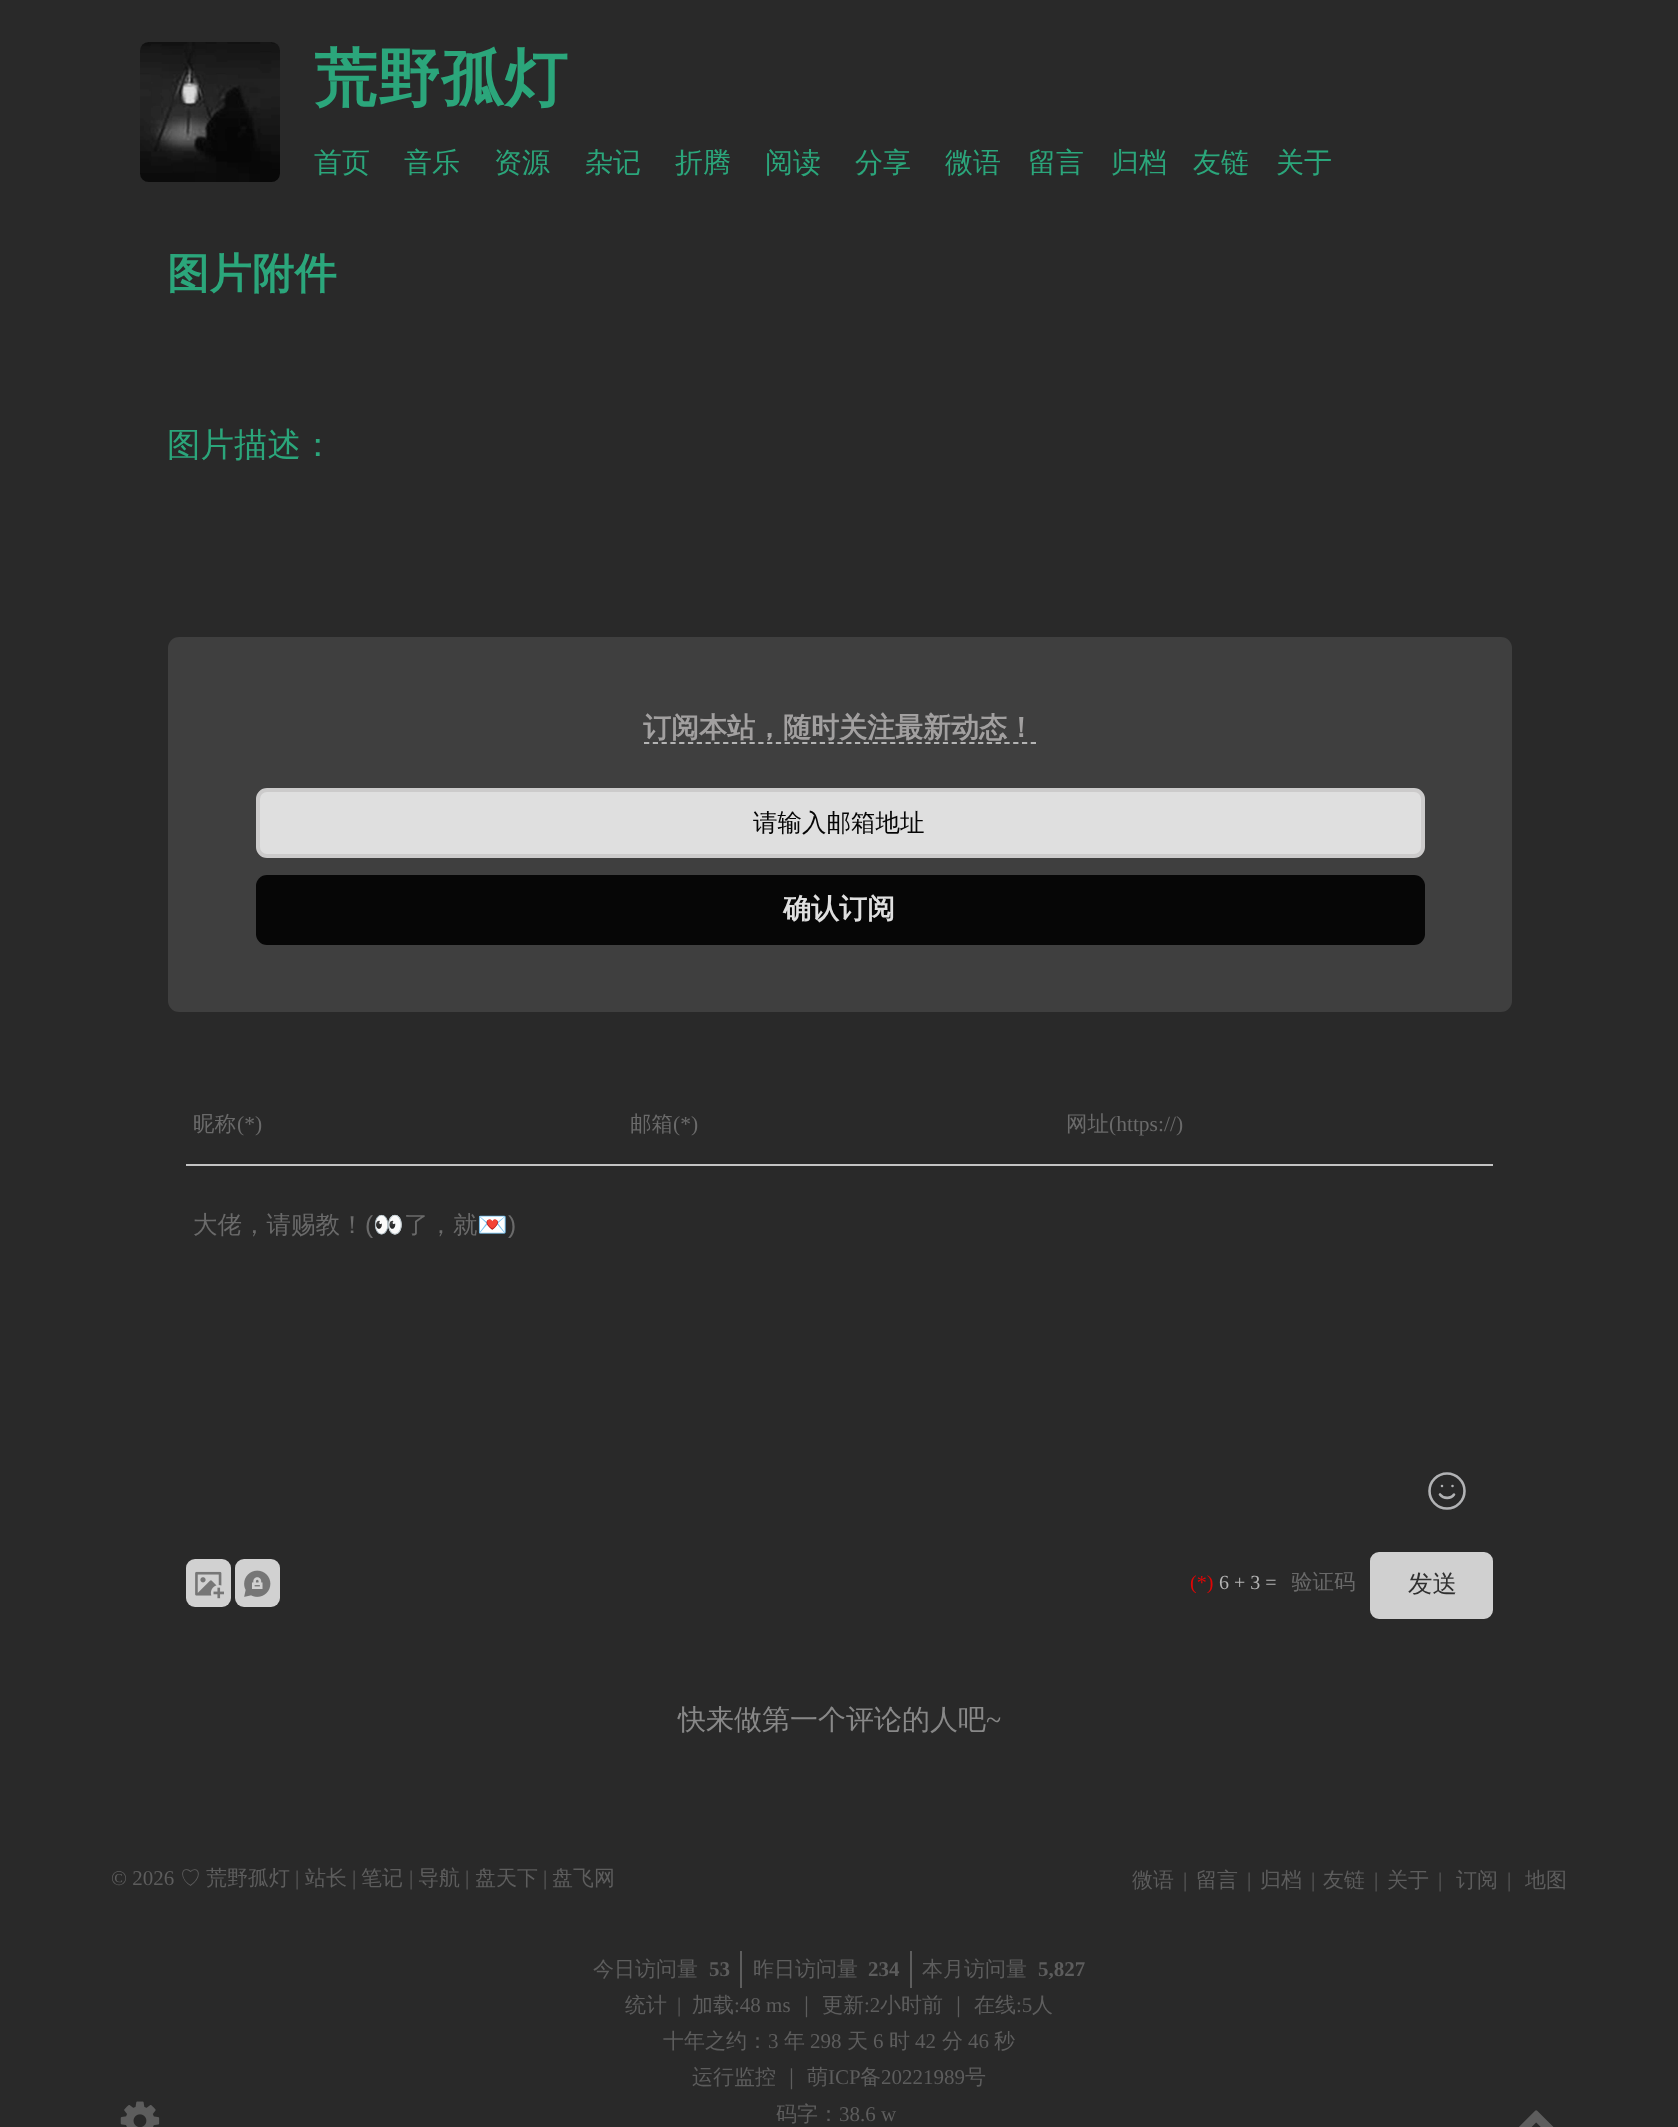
<svg xmlns="http://www.w3.org/2000/svg" width="1678" height="2127" viewBox="0 0 1678 2127">
  <defs>
    <clipPath id="clip1"><rect x="1292" y="1568" width="66" height="30"/></clipPath>
  </defs>
  <rect width="100%" height="100%" fill="#292929"/>
  <image x="140" y="42" width="140" height="140" href="img1.png"/>
  <text x="314" y="100" font-family="WenQuanYi Zen Hei" font-size="63" font-weight="bold" letter-spacing="0.5" fill="#2ba67b">荒野孤灯</text>
  <text x="314" y="172" font-family="WenQuanYi Zen Hei" font-size="28" font-weight="500" fill="#2ba67b">首页</text>
  <text x="404" y="172" font-family="WenQuanYi Zen Hei" font-size="28" font-weight="500" fill="#2ba67b">音乐</text>
  <text x="494" y="172" font-family="WenQuanYi Zen Hei" font-size="28" font-weight="500" fill="#2ba67b">资源</text>
  <text x="585" y="172" font-family="WenQuanYi Zen Hei" font-size="28" font-weight="500" fill="#2ba67b">杂记</text>
  <text x="675" y="172" font-family="WenQuanYi Zen Hei" font-size="28" font-weight="500" fill="#2ba67b">折腾</text>
  <text x="765" y="172" font-family="WenQuanYi Zen Hei" font-size="28" font-weight="500" fill="#2ba67b">阅读</text>
  <text x="855" y="172" font-family="WenQuanYi Zen Hei" font-size="28" font-weight="500" fill="#2ba67b">分享</text>
  <text x="945" y="172" font-family="WenQuanYi Zen Hei" font-size="28" font-weight="500" fill="#2ba67b">微语</text>
  <text x="1028" y="172" font-family="WenQuanYi Zen Hei" font-size="28" font-weight="500" fill="#2ba67b">留言</text>
  <text x="1111" y="172" font-family="WenQuanYi Zen Hei" font-size="28" font-weight="500" fill="#2ba67b">归档</text>
  <text x="1193" y="172" font-family="WenQuanYi Zen Hei" font-size="28" font-weight="500" fill="#2ba67b">友链</text>
  <text x="1276" y="172" font-family="WenQuanYi Zen Hei" font-size="28" font-weight="500" fill="#2ba67b">关于</text>
  <text x="167" y="288" font-family="WenQuanYi Zen Hei" font-size="42" font-weight="bold" letter-spacing="0.5" fill="#2ba67b">图片附件</text>
  <text x="167" y="456" font-family="WenQuanYi Zen Hei" font-size="33.5" font-weight="500" fill="#2ba67b">图片描述：</text>
  <rect x="168" y="637" width="1344" height="375" rx="11" fill="#3f3f3f"/>
  <text x="643" y="737" font-family="WenQuanYi Zen Hei" font-size="28" font-weight="bold" fill="#a2a0a0">订阅本站，随时关注最新动态！</text>
  <path d="M644 743H1036" fill="none" stroke="#b4b4b4" stroke-width="1.8" stroke-dasharray="5.25 3.54"/>
  <rect x="258" y="790" width="1165" height="66" rx="9" fill="#dfdfdf" stroke="#cccbcb" stroke-width="4"/>
  <text x="753" y="831" font-family="WenQuanYi Zen Hei" font-size="24.5" font-weight="500" fill="#060606">请输入邮箱地址</text>
  <rect x="256" y="875" width="1169" height="70" rx="11" fill="#060606"/>
  <text x="783" y="918" font-family="WenQuanYi Zen Hei" font-size="28" font-weight="bold" fill="#dfdfdf">确认订阅</text>
  <rect x="186" y="1164" width="1307" height="2" fill="#c3c3c3"/>
  <text x="193" y="1131" font-family="WenQuanYi Zen Hei" font-size="21.5" font-weight="500" fill="#6a6a6a">昵称</text>
  <text x="237" y="1131" font-family="Liberation Serif" font-size="21.5" fill="#6a6a6a">(*)</text>
  <text x="630" y="1131" font-family="WenQuanYi Zen Hei" font-size="21.5" font-weight="500" fill="#6a6a6a">邮箱</text>
  <text x="673" y="1131" font-family="Liberation Serif" font-size="21.5" fill="#6a6a6a">(*)</text>
  <text x="1066" y="1131" font-family="WenQuanYi Zen Hei" font-size="21.5" font-weight="500" fill="#6a6a6a">网址</text>
  <text x="1109" y="1131" font-family="Liberation Serif" font-size="21.5" fill="#6a6a6a">(https://)</text>
  <text x="193" y="1233" font-family="WenQuanYi Zen Hei" font-size="24.5" font-weight="500" fill="#6a6a6a">大佬，请赐教！</text>
  <text x="365" y="1233" font-family="Liberation Sans" font-size="24.5" fill="#6a6a6a">(</text>
  <text x="373" y="1233" font-family="Noto Color Emoji" font-size="24.5" fill="#6a6a6a">👀</text>
  <text x="404" y="1233" font-family="WenQuanYi Zen Hei" font-size="24.5" font-weight="500" fill="#6a6a6a">了，就</text>
  <text x="477" y="1233" font-family="Noto Color Emoji" font-size="24.5" fill="#6a6a6a">💌</text>
  <text x="508" y="1233" font-family="Liberation Sans" font-size="24.5" fill="#6a6a6a">)</text>
  <circle cx="1447" cy="1491" r="17.5" fill="none" stroke="#b1b2b4" stroke-width="2.6"/>
  <path d="M1440 1494.5C1443.5 1499 1451 1499 1454 1494.5M1442 1486H1442M1452.5 1486H1452.5" fill="none" stroke="#b1b2b4" stroke-width="2.6" stroke-linecap="round" stroke-linejoin="round"/>
  <rect x="186" y="1559" width="45" height="48" rx="9" fill="#d1d1d1"/>
  <image x="195" y="1571" width="29" height="28" href="img2.png"/>
  <rect x="235" y="1559" width="45" height="48" rx="9" fill="#d1d1d1"/>
  <image x="244" y="1570" width="27" height="27" href="img3.png"/>
  <text x="1190" y="1589" font-family="Liberation Serif" font-size="20" fill="#df0606">(*)</text>
  <text x="1219" y="1589" font-family="Liberation Serif" font-size="20" fill="#b4b4b4">6 + 3 =</text>
  <g clip-path="url(#clip1)">
    <text x="1291" y="1589" font-family="WenQuanYi Zen Hei" font-size="21.5" font-weight="500" fill="#6a6a6a">验证码</text>
  </g>
  <rect x="1371" y="1553" width="121" height="65" rx="8" fill="#d0d0d0" stroke="#d0d0d0" stroke-width="2"/>
  <text x="1408" y="1592" font-family="WenQuanYi Zen Hei" font-size="24.5" font-weight="500" fill="#303030">发送</text>
  <text x="678" y="1729" font-family="WenQuanYi Zen Hei" font-size="28" font-weight="500" fill="#888888">快来做第一个评论的人吧</text>
  <text x="986" y="1729" font-family="Liberation Serif" font-size="28" fill="#888888">~</text>
  <text x="111" y="1885" font-family="Liberation Serif" font-size="21" fill="#5d5d5d">© 2026</text>
  <text x="180" y="1885" font-family="WenQuanYi Zen Hei" font-size="21" font-weight="500" fill="#5d5d5d">♡</text>
  <text x="206" y="1885" font-family="WenQuanYi Zen Hei" font-size="21" font-weight="500" fill="#5d5d5d">荒野孤灯</text>
  <text x="295" y="1885" font-family="Liberation Serif" font-size="21" fill="#5d5d5d">|</text>
  <text x="305" y="1885" font-family="WenQuanYi Zen Hei" font-size="21" font-weight="500" fill="#5d5d5d">站长</text>
  <text x="352" y="1885" font-family="Liberation Serif" font-size="21" fill="#5d5d5d">|</text>
  <text x="361" y="1885" font-family="WenQuanYi Zen Hei" font-size="21" font-weight="500" fill="#5d5d5d">笔记</text>
  <text x="409" y="1885" font-family="Liberation Serif" font-size="21" fill="#5d5d5d">|</text>
  <text x="418" y="1885" font-family="WenQuanYi Zen Hei" font-size="21" font-weight="500" fill="#5d5d5d">导航</text>
  <text x="465" y="1885" font-family="Liberation Serif" font-size="21" fill="#5d5d5d">|</text>
  <text x="475" y="1885" font-family="WenQuanYi Zen Hei" font-size="21" font-weight="500" fill="#5d5d5d">盘天下</text>
  <text x="543" y="1885" font-family="Liberation Serif" font-size="21" fill="#5d5d5d">|</text>
  <text x="552" y="1885" font-family="WenQuanYi Zen Hei" font-size="21" font-weight="500" fill="#5d5d5d">盘飞网</text>
  <text x="1132" y="1887" font-family="WenQuanYi Zen Hei" font-size="21" font-weight="500" fill="#5d5d5d">微语</text>
  <text x="1183" y="1887" font-family="Liberation Serif" font-size="21" fill="#5d5d5d">|</text>
  <text x="1196" y="1887" font-family="WenQuanYi Zen Hei" font-size="21" font-weight="500" fill="#5d5d5d">留言</text>
  <text x="1247" y="1887" font-family="Liberation Serif" font-size="21" fill="#5d5d5d">|</text>
  <text x="1260" y="1887" font-family="WenQuanYi Zen Hei" font-size="21" font-weight="500" fill="#5d5d5d">归档</text>
  <text x="1311" y="1887" font-family="Liberation Serif" font-size="21" fill="#5d5d5d">|</text>
  <text x="1323" y="1887" font-family="WenQuanYi Zen Hei" font-size="21" font-weight="500" fill="#5d5d5d">友链</text>
  <text x="1374" y="1887" font-family="Liberation Serif" font-size="21" fill="#5d5d5d">|</text>
  <text x="1387" y="1887" font-family="WenQuanYi Zen Hei" font-size="21" font-weight="500" fill="#5d5d5d">关于</text>
  <text x="1438" y="1887" font-family="Liberation Serif" font-size="21" fill="#5d5d5d">|</text>
  <text x="1456" y="1887" font-family="WenQuanYi Zen Hei" font-size="21" font-weight="500" fill="#5d5d5d">订阅</text>
  <text x="1507" y="1887" font-family="Liberation Serif" font-size="21" fill="#5d5d5d">|</text>
  <text x="1525" y="1887" font-family="WenQuanYi Zen Hei" font-size="21" font-weight="500" fill="#5d5d5d">地图</text>
  <text x="593" y="1976" font-family="WenQuanYi Zen Hei" font-size="21" font-weight="500" fill="#5d5d5d">今日访问量</text>
  <text x="709" y="1976" font-family="Liberation Serif" font-size="21" font-weight="bold" fill="#5d5d5d">53</text>
  <rect x="740" y="1951" width="2" height="37" fill="#5d5d5d"/>
  <text x="753" y="1976" font-family="WenQuanYi Zen Hei" font-size="21" font-weight="500" fill="#5d5d5d">昨日访问量</text>
  <text x="868" y="1976" font-family="Liberation Serif" font-size="21" font-weight="bold" fill="#5d5d5d">234</text>
  <rect x="910" y="1951" width="2" height="37" fill="#5d5d5d"/>
  <text x="922" y="1976" font-family="WenQuanYi Zen Hei" font-size="21" font-weight="500" fill="#5d5d5d">本月访问量</text>
  <text x="1038" y="1976" font-family="Liberation Serif" font-size="21" font-weight="bold" fill="#5d5d5d">5,827</text>
  <text x="625" y="2012" font-family="WenQuanYi Zen Hei" font-size="21" font-weight="500" fill="#5d5d5d">统计</text>
  <text x="677" y="2012" font-family="Liberation Serif" font-size="21" fill="#5d5d5d">|</text>
  <text x="692" y="2012" font-family="WenQuanYi Zen Hei" font-size="21" font-weight="500" fill="#5d5d5d">加载</text>
  <text x="734" y="2012" font-family="Liberation Serif" font-size="21" fill="#5d5d5d">:48 ms</text>
  <text x="796" y="2012" font-family="WenQuanYi Zen Hei" font-size="21" font-weight="500" fill="#5d5d5d">｜</text>
  <text x="822" y="2012" font-family="WenQuanYi Zen Hei" font-size="21" font-weight="500" fill="#5d5d5d">更新</text>
  <text x="864" y="2012" font-family="Liberation Serif" font-size="21" fill="#5d5d5d">:2</text>
  <text x="880" y="2012" font-family="WenQuanYi Zen Hei" font-size="21" font-weight="500" fill="#5d5d5d">小时前</text>
  <text x="948" y="2012" font-family="WenQuanYi Zen Hei" font-size="21" font-weight="500" fill="#5d5d5d">｜</text>
  <text x="974" y="2012" font-family="WenQuanYi Zen Hei" font-size="21" font-weight="500" fill="#5d5d5d">在线</text>
  <text x="1016" y="2012" font-family="Liberation Serif" font-size="21" fill="#5d5d5d">:5</text>
  <text x="1032" y="2012" font-family="WenQuanYi Zen Hei" font-size="21" font-weight="500" fill="#5d5d5d">人</text>
  <text x="663" y="2048" font-family="WenQuanYi Zen Hei" font-size="21" font-weight="500" fill="#5d5d5d">十年之约：</text>
  <text x="768" y="2048" font-family="Liberation Serif" font-size="21" fill="#5d5d5d">3</text>
  <text x="784" y="2048" font-family="WenQuanYi Zen Hei" font-size="21" font-weight="500" fill="#5d5d5d">年</text>
  <text x="810" y="2048" font-family="Liberation Serif" font-size="21" fill="#5d5d5d">298</text>
  <text x="847" y="2048" font-family="WenQuanYi Zen Hei" font-size="21" font-weight="500" fill="#5d5d5d">天</text>
  <text x="873" y="2048" font-family="Liberation Serif" font-size="21" fill="#5d5d5d">6</text>
  <text x="889" y="2048" font-family="WenQuanYi Zen Hei" font-size="21" font-weight="500" fill="#5d5d5d">时</text>
  <text x="915" y="2048" font-family="Liberation Serif" font-size="21" fill="#5d5d5d">42</text>
  <text x="942" y="2048" font-family="WenQuanYi Zen Hei" font-size="21" font-weight="500" fill="#5d5d5d">分</text>
  <text x="968" y="2048" font-family="Liberation Serif" font-size="21" fill="#5d5d5d">46</text>
  <text x="994" y="2048" font-family="WenQuanYi Zen Hei" font-size="21" font-weight="500" fill="#5d5d5d">秒</text>
  <text x="692" y="2084" font-family="WenQuanYi Zen Hei" font-size="21" font-weight="500" fill="#5d5d5d">运行监控</text>
  <text x="781" y="2084" font-family="WenQuanYi Zen Hei" font-size="21" font-weight="500" fill="#5d5d5d">｜</text>
  <text x="807" y="2084" font-family="WenQuanYi Zen Hei" font-size="21" font-weight="500" fill="#5d5d5d">萌</text>
  <text x="828" y="2084" font-family="Liberation Serif" font-size="21" fill="#5d5d5d">ICP</text>
  <text x="860" y="2084" font-family="WenQuanYi Zen Hei" font-size="21" font-weight="500" fill="#5d5d5d">备</text>
  <text x="881" y="2084" font-family="Liberation Serif" font-size="21" fill="#5d5d5d">20221989</text>
  <text x="965" y="2084" font-family="WenQuanYi Zen Hei" font-size="21" font-weight="500" fill="#5d5d5d">号</text>
  <image x="120" y="2101" width="40" height="26" href="img4.png"/>
  <text x="776" y="2121" font-family="WenQuanYi Zen Hei" font-size="21" font-weight="500" fill="#5d5d5d">码字：</text>
  <text x="839" y="2121" font-family="Liberation Serif" font-size="21" fill="#5d5d5d">38.6 w</text>
  <image x="1519" y="2110" width="35" height="17" href="img5.png"/>
</svg>
